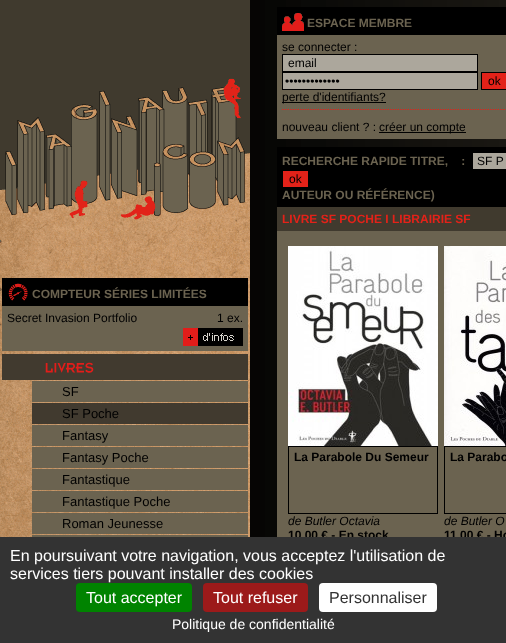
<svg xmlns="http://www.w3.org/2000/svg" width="506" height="643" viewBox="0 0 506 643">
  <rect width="100%" height="100%" fill="#ffffff"/>
  <image x="250" y="0" width="256" height="537" href="img1.png"/>
  <image x="0" y="0" width="250" height="276" href="img2.png"/>
  <image x="0" y="276" width="250" height="261" href="img3.png"/>
  <rect x="2" y="278" width="246" height="28" fill="#000000"/>
  <image x="8" y="283" width="20" height="18" href="img4.png"/>
  <text x="32" y="298" font-family="Liberation Sans" font-size="12" font-weight="bold" fill="#6b6350">COMPTEUR SÉRIES LIMITÉES</text>
  <rect x="2" y="306" width="246" height="45" fill="#6b6350"/>
  <text x="7" y="322" font-family="Liberation Sans" font-size="12" fill="#000000">Secret Invasion Portfolio</text>
  <text x="217" y="322" font-family="Liberation Sans" font-size="12" fill="#000000">1 ex.</text>
  <image x="183" y="328" width="60" height="18" href="img5.png"/>
  <image x="2" y="354" width="246" height="26" href="img6.png"/>
  <rect x="32" y="381" width="216" height="21" fill="#6b6350"/>
  <text x="62" y="396" font-family="Liberation Sans" font-size="13" fill="#000000">SF</text>
  <rect x="32" y="403" width="216" height="21" fill="#413a2f"/>
  <text x="62" y="418" font-family="Liberation Sans" font-size="13" fill="#000000">SF Poche</text>
  <rect x="32" y="425" width="216" height="21" fill="#6b6350"/>
  <text x="62" y="440" font-family="Liberation Sans" font-size="13" fill="#000000">Fantasy</text>
  <rect x="32" y="447" width="216" height="21" fill="#6b6350"/>
  <text x="62" y="462" font-family="Liberation Sans" font-size="13" fill="#000000">Fantasy Poche</text>
  <rect x="32" y="469" width="216" height="21" fill="#6b6350"/>
  <text x="62" y="484" font-family="Liberation Sans" font-size="13" fill="#000000">Fantastique</text>
  <rect x="32" y="491" width="216" height="21" fill="#6b6350"/>
  <text x="62" y="506" font-family="Liberation Sans" font-size="13" fill="#000000">Fantastique Poche</text>
  <rect x="32" y="513" width="216" height="21" fill="#6b6350"/>
  <text x="62" y="528" font-family="Liberation Sans" font-size="13" fill="#000000">Roman Jeunesse</text>
  <rect x="32" y="535" width="216" height="2" fill="#6b6350"/>
  <rect x="277" y="35" width="229" height="104" fill="#6b6350"/>
  <rect x="277" y="7" width="229" height="28" fill="#000000"/>
  <image x="282" y="13" width="22" height="18" href="img7.png"/>
  <text x="307" y="27" font-family="Liberation Sans" font-size="12" font-weight="bold" fill="#6b6350">ESPACE MEMBRE</text>
  <path d="M282 109.5H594" fill="none" stroke="#e32219" stroke-dasharray="1 1"/>
  <text x="282" y="51" font-family="Liberation Sans" font-size="12" fill="#000000">se connecter :</text>
  <rect x="282.5" y="54.5" width="195" height="17" fill="#aca79c" stroke="#000000"/>
  <text x="288" y="67" font-family="Liberation Sans" font-size="12" fill="#000000">email</text>
  <rect x="282.5" y="72.5" width="195" height="17" fill="#aca79c" stroke="#000000"/>
  <text x="285" y="85" font-family="Liberation Sans" font-size="12" fill="#000000">•••••••••••••</text>
  <rect x="481.5" y="72.5" width="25" height="17" fill="#e32219" stroke="#000000"/>
  <text x="488" y="85" font-family="Liberation Sans" font-size="12" fill="#000000">ok</text>
  <rect x="282" y="102" width="104" height="1" fill="#000000"/>
  <text x="282" y="101" font-family="Liberation Sans" font-size="12" fill="#000000">perte d'identifiants?</text>
  <text x="282" y="131" font-family="Liberation Sans" font-size="12" fill="#000000">nouveau client ? :</text>
  <rect x="379" y="132" width="87" height="1" fill="#000000"/>
  <text x="379" y="131" font-family="Liberation Sans" font-size="12" fill="#000000">créer un compte</text>
  <rect x="277" y="147" width="229" height="60" fill="#000000"/>
  <text x="282" y="165" font-family="Liberation Sans" font-size="12" font-weight="bold" fill="#6b6350" xml:space="preserve">RECHERCHE RAPIDE TITRE,    :</text>
  <rect x="473" y="153" width="33" height="16" fill="#aca79c"/>
  <text x="477" y="165" font-family="Liberation Sans" font-size="12" fill="#000000">SF P</text>
  <rect x="283" y="171" width="25" height="16" fill="#e32219"/>
  <text x="289" y="183" font-family="Liberation Sans" font-size="12" fill="#000000">ok</text>
  <text x="282" y="199" font-family="Liberation Sans" font-size="12" font-weight="bold" fill="#6b6350">AUTEUR OU RÉFÉRENCE)</text>
  <rect x="277" y="207" width="229" height="24" fill="#403a2e"/>
  <text x="282" y="223" font-family="Liberation Sans" font-size="12" font-weight="bold" fill="#e32219">LIVRE SF POCHE I LIBRAIRIE SF</text>
  <rect x="277" y="231" width="229" height="306" fill="#6b6350"/>
  <image x="288" y="246" width="150" height="200" href="img8.png"/>
  <rect x="288.5" y="446.5" width="149" height="67" fill="none" stroke="#000000"/>
  <text x="294" y="461" font-family="Liberation Sans" font-size="12" font-weight="bold" fill="#000000">La Parabole Du Semeur</text>
  <text x="288" y="525" font-family="Liberation Sans" font-size="12" font-style="italic" fill="#000000">de Butler Octavia</text>
  <text x="288" y="539" font-family="Liberation Sans" font-size="12" font-weight="bold" fill="#000000">10.00 € - En stock</text>
  <image x="444" y="246" width="62" height="200" href="img9.png"/>
  <rect x="444.5" y="446.5" width="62" height="67" fill="none" stroke="#000000"/>
  <text x="450" y="461" font-family="Liberation Sans" font-size="12" font-weight="bold" fill="#000000">La Parabo</text>
  <text x="444" y="525" font-family="Liberation Sans" font-size="12" font-style="italic" fill="#000000">de Butler O</text>
  <text x="444" y="539" font-family="Liberation Sans" font-size="12" font-weight="bold" fill="#000000">11.00 € - Ho</text>
  <rect x="0" y="537" width="506" height="106" fill="#333333"/>
  <text x="10" y="561" font-family="Liberation Sans" font-size="16" fill="#ffffff">En poursuivant votre navigation, vous acceptez l'utilisation de</text>
  <text x="10" y="579" font-family="Liberation Sans" font-size="16" fill="#ffffff">services tiers pouvant installer des cookies</text>
  <rect x="76" y="583" width="116" height="29" rx="4" fill="#008300"/>
  <text x="86" y="603" font-family="Liberation Sans" font-size="16" fill="#ffffff">Tout accepter</text>
  <rect x="203" y="583" width="105" height="29" rx="4" fill="#9c1a1a"/>
  <text x="213" y="603" font-family="Liberation Sans" font-size="16" fill="#ffffff">Tout refuser</text>
  <rect x="319" y="583" width="118" height="29" rx="4" fill="#ffffff"/>
  <text x="329" y="603" font-family="Liberation Sans" font-size="16" fill="#333333">Personnaliser</text>
  <text x="172" y="629" font-family="Liberation Sans" font-size="14" fill="#ffffff">Politique de confidentialité</text>
</svg>
